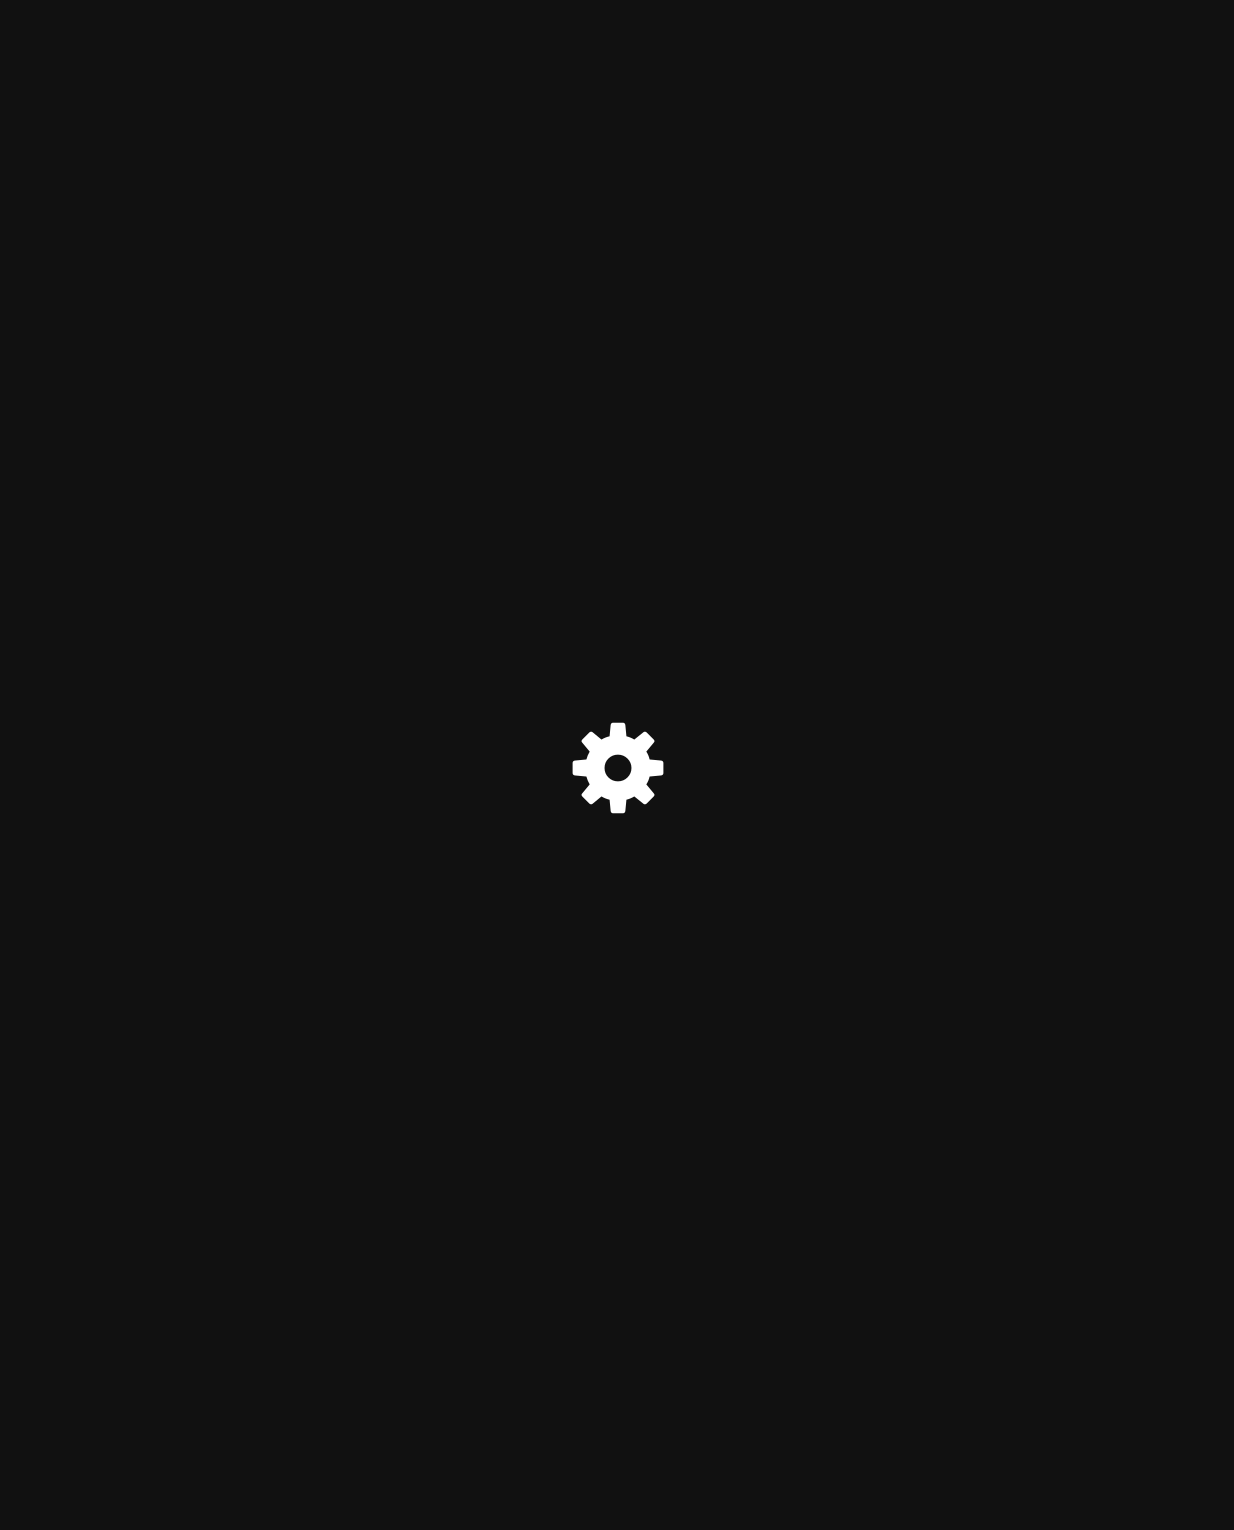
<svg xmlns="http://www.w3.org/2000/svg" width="1234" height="1530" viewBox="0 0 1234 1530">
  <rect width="100%" height="100%" fill="#111111"/>
  <image x="572" y="722" width="92" height="92" href="img1.png"/>
</svg>
